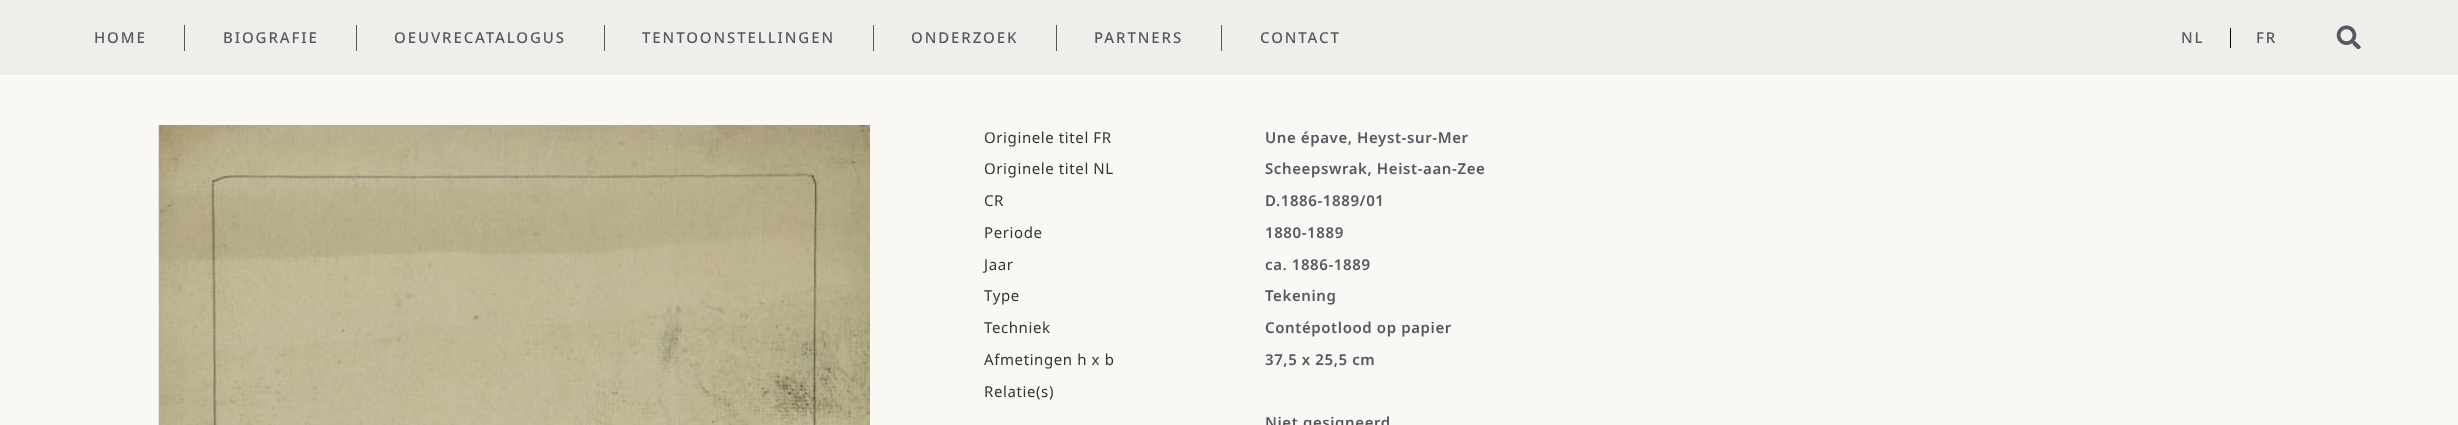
<svg xmlns="http://www.w3.org/2000/svg" width="2458" height="425" viewBox="0 0 2458 425">
  <rect width="100%" height="100%" fill="#f9f8f5"/>
  <rect x="0" y="0" width="2458" height="75" fill="#f0eeea"/>
  <text x="94" y="43" font-family="Noto Sans" font-size="15" font-weight="500" letter-spacing="1.9" fill="#54595f">HOME</text>
  <rect x="184" y="25" width="1" height="26" fill="#54595f"/>
  <text x="223" y="43" font-family="Noto Sans" font-size="15" font-weight="500" letter-spacing="1.9" fill="#54595f">BIOGRAFIE</text>
  <rect x="356" y="25" width="1" height="26" fill="#54595f"/>
  <text x="394" y="43" font-family="Noto Sans" font-size="15" font-weight="500" letter-spacing="1.9" fill="#54595f">OEUVRECATALOGUS</text>
  <rect x="604" y="25" width="1" height="26" fill="#54595f"/>
  <text x="642" y="43" font-family="Noto Sans" font-size="15" font-weight="500" letter-spacing="1.9" fill="#54595f">TENTOONSTELLINGEN</text>
  <rect x="873" y="25" width="1" height="26" fill="#54595f"/>
  <text x="911" y="43" font-family="Noto Sans" font-size="15" font-weight="500" letter-spacing="1.9" fill="#54595f">ONDERZOEK</text>
  <rect x="1056" y="25" width="1" height="26" fill="#54595f"/>
  <text x="1094" y="43" font-family="Noto Sans" font-size="15" font-weight="500" letter-spacing="1.9" fill="#54595f">PARTNERS</text>
  <rect x="1221" y="25" width="1" height="26" fill="#54595f"/>
  <text x="1260" y="43" font-family="Noto Sans" font-size="15" font-weight="500" letter-spacing="1.9" fill="#54595f">CONTACT</text>
  <text x="2181" y="43" font-family="Noto Sans" font-size="15" font-weight="500" letter-spacing="1.9" fill="#54595f">NL</text>
  <rect x="2230" y="28" width="1" height="20" fill="#000000"/>
  <text x="2256" y="43" font-family="Noto Sans" font-size="15" font-weight="500" letter-spacing="1.9" fill="#54595f">FR</text>
  <image x="2336" y="25" width="25" height="24" href="img1.png"/>
  <image x="158" y="125" width="712" height="300" href="img2.png"/>
  <text x="984" y="143" font-family="Noto Sans" font-size="15" letter-spacing="0.6" fill="#333333">Originele titel FR</text>
  <text x="1265" y="143" font-family="Noto Sans" font-size="15" font-weight="600" letter-spacing="0.6" fill="#54595f">Une épave, Heyst-sur-Mer</text>
  <text x="984" y="174" font-family="Noto Sans" font-size="15" letter-spacing="0.6" fill="#333333">Originele titel NL</text>
  <text x="1265" y="174" font-family="Noto Sans" font-size="15" font-weight="600" letter-spacing="0.6" fill="#54595f">Scheepswrak, Heist-aan-Zee</text>
  <text x="984" y="206" font-family="Noto Sans" font-size="15" letter-spacing="0.6" fill="#333333">CR</text>
  <text x="1265" y="206" font-family="Noto Sans" font-size="15" font-weight="600" letter-spacing="0.6" fill="#54595f">D.1886-1889/01</text>
  <text x="984" y="238" font-family="Noto Sans" font-size="15" letter-spacing="0.6" fill="#333333">Periode</text>
  <text x="1265" y="238" font-family="Noto Sans" font-size="15" font-weight="600" letter-spacing="0.6" fill="#54595f">1880-1889</text>
  <text x="984" y="270" font-family="Noto Sans" font-size="15" letter-spacing="0.6" fill="#333333">Jaar</text>
  <text x="1265" y="270" font-family="Noto Sans" font-size="15" font-weight="600" letter-spacing="0.6" fill="#54595f">ca. 1886-1889</text>
  <text x="984" y="301" font-family="Noto Sans" font-size="15" letter-spacing="0.6" fill="#333333">Type</text>
  <text x="1265" y="301" font-family="Noto Sans" font-size="15" font-weight="600" letter-spacing="0.6" fill="#54595f">Tekening</text>
  <text x="984" y="333" font-family="Noto Sans" font-size="15" letter-spacing="0.6" fill="#333333">Techniek</text>
  <text x="1265" y="333" font-family="Noto Sans" font-size="15" font-weight="600" letter-spacing="0.6" fill="#54595f">Contépotlood op papier</text>
  <text x="984" y="365" font-family="Noto Sans" font-size="15" letter-spacing="0.6" fill="#333333">Afmetingen h x b</text>
  <text x="1265" y="365" font-family="Noto Sans" font-size="15" font-weight="600" letter-spacing="0.6" fill="#54595f">37,5 x 25,5 cm</text>
  <text x="984" y="397" font-family="Noto Sans" font-size="15" letter-spacing="0.6" fill="#333333">Relatie(s)</text>
  <text x="1265" y="428" font-family="Noto Sans" font-size="15" font-weight="600" letter-spacing="0.6" fill="#54595f">Niet gesigneerd</text>
</svg>
